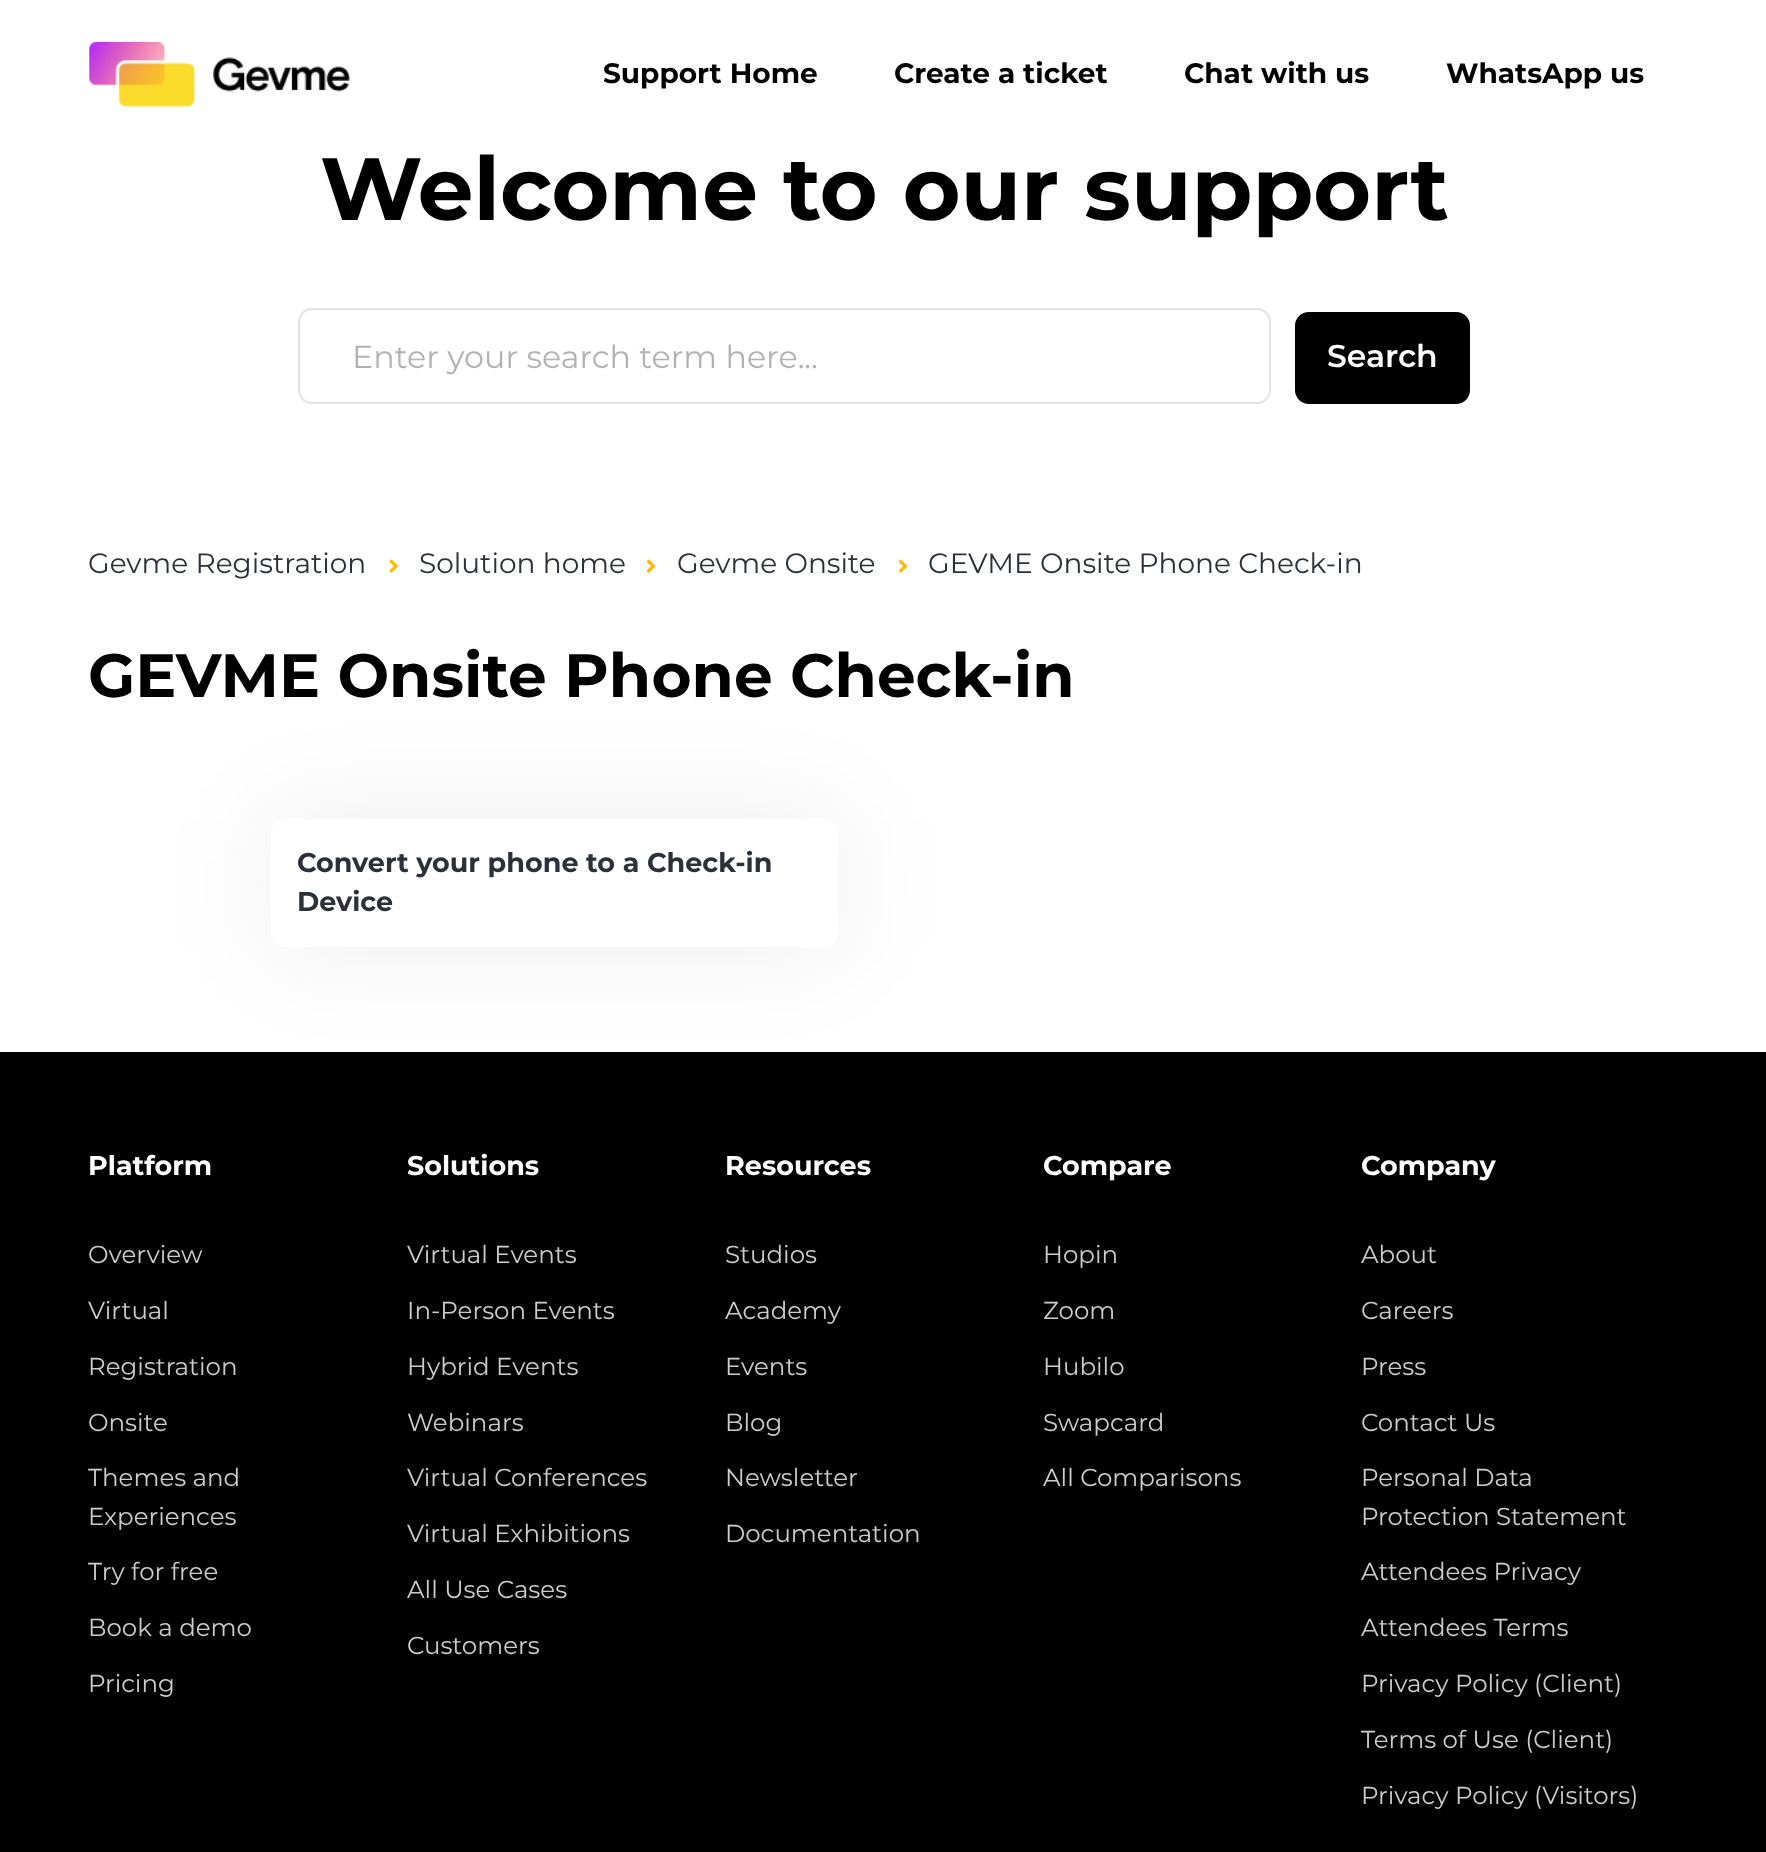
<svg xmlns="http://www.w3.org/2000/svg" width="1766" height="1852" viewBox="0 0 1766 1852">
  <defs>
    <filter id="blur1" x="-50%" y="-200%" width="200%" height="500%"><feGaussianBlur stdDeviation="52.5"/></filter>
  </defs>
  <rect width="100%" height="100%" fill="#ffffff"/>
  <image x="89" y="42" width="261" height="65" href="img1.png"/>
  <text x="603" y="83" font-family="Montserrat" font-size="28" font-weight="bold" fill="#000000">Support Home</text>
  <text x="894" y="83" font-family="Montserrat" font-size="28" font-weight="bold" fill="#000000">Create a ticket</text>
  <text x="1184" y="83" font-family="Montserrat" font-size="28" font-weight="bold" fill="#000000">Chat with us</text>
  <text x="1446" y="83" font-family="Montserrat" font-size="28" font-weight="bold" fill="#000000">WhatsApp us</text>
  <text x="320" y="220" font-family="Montserrat" font-size="88.25" font-weight="bold" fill="#000000">Welcome to our support</text>
  <rect x="299" y="309" width="971" height="94" rx="13" fill="none" stroke="#e3e3e3" stroke-width="2"/>
  <text x="352" y="368" font-family="Montserrat" font-size="31.8" fill="#b2b2b2">Enter your search term here...</text>
  <rect x="1295" y="312" width="175" height="92" rx="14" fill="#000000"/>
  <text x="1327" y="367" font-family="Montserrat" font-size="31.5" font-weight="600" fill="#ffffff">Search</text>
  <text x="88" y="573" font-family="Montserrat" font-size="28" fill="#2c3038">Gevme Registration</text>
  <image x="389" y="559" width="9" height="14" href="img2.png"/>
  <text x="419" y="573" font-family="Montserrat" font-size="28" fill="#2c3038">Solution home</text>
  <image x="646" y="559" width="10" height="14" href="img3.png"/>
  <text x="677" y="573" font-family="Montserrat" font-size="28" fill="#2c3038">Gevme Onsite</text>
  <image x="898" y="559" width="10" height="14" href="img3.png"/>
  <text x="928" y="573" font-family="Montserrat" font-size="28" fill="#2c3038">GEVME Onsite Phone Check-in</text>
  <text x="88" y="697" font-family="Montserrat" font-size="61.25" font-weight="bold" fill="#000000">GEVME Onsite Phone Check-in</text>
  <rect x="271" y="819" width="567" height="128" rx="14" fill="#000000" fill-opacity="0.07" filter="url(#blur1)"/>
  <rect x="271" y="819" width="567" height="128" rx="14" fill="#ffffff"/>
  <text x="297" y="872" font-family="Montserrat" font-size="27" font-weight="bold" fill="#2c3038">Convert your phone to a Check-in</text>
  <text x="297" y="911" font-family="Montserrat" font-size="27" font-weight="bold" fill="#2c3038">Device</text>
  <rect x="0" y="1052" width="1766" height="800" fill="#000000"/>
  <text x="88" y="1175" font-family="Montserrat" font-size="27" font-weight="bold" fill="#ffffff">Platform</text>
  <text x="88" y="1263" font-family="Montserrat" font-size="24.5" fill="#cccccc">Overview</text>
  <text x="88" y="1319" font-family="Montserrat" font-size="24.5" fill="#cccccc">Virtual</text>
  <text x="88" y="1375" font-family="Montserrat" font-size="24.5" fill="#cccccc">Registration</text>
  <text x="88" y="1431" font-family="Montserrat" font-size="24.5" fill="#cccccc">Onsite</text>
  <text x="88" y="1486" font-family="Montserrat" font-size="24.5" fill="#cccccc">Themes and</text>
  <text x="88" y="1525" font-family="Montserrat" font-size="24.5" fill="#cccccc">Experiences</text>
  <text x="88" y="1580" font-family="Montserrat" font-size="24.5" fill="#cccccc">Try for free</text>
  <text x="88" y="1636" font-family="Montserrat" font-size="24.5" fill="#cccccc">Book a demo</text>
  <text x="88" y="1692" font-family="Montserrat" font-size="24.5" fill="#cccccc">Pricing</text>
  <text x="407" y="1175" font-family="Montserrat" font-size="27" font-weight="bold" fill="#ffffff">Solutions</text>
  <text x="407" y="1263" font-family="Montserrat" font-size="24.5" fill="#cccccc">Virtual Events</text>
  <text x="407" y="1319" font-family="Montserrat" font-size="24.5" fill="#cccccc">In-Person Events</text>
  <text x="407" y="1375" font-family="Montserrat" font-size="24.5" fill="#cccccc">Hybrid Events</text>
  <text x="407" y="1431" font-family="Montserrat" font-size="24.5" fill="#cccccc">Webinars</text>
  <text x="407" y="1486" font-family="Montserrat" font-size="24.5" fill="#cccccc">Virtual Conferences</text>
  <text x="407" y="1542" font-family="Montserrat" font-size="24.5" fill="#cccccc">Virtual Exhibitions</text>
  <text x="407" y="1598" font-family="Montserrat" font-size="24.5" fill="#cccccc">All Use Cases</text>
  <text x="407" y="1654" font-family="Montserrat" font-size="24.5" fill="#cccccc">Customers</text>
  <text x="725" y="1175" font-family="Montserrat" font-size="27" font-weight="bold" fill="#ffffff">Resources</text>
  <text x="725" y="1263" font-family="Montserrat" font-size="24.5" fill="#cccccc">Studios</text>
  <text x="725" y="1319" font-family="Montserrat" font-size="24.5" fill="#cccccc">Academy</text>
  <text x="725" y="1375" font-family="Montserrat" font-size="24.5" fill="#cccccc">Events</text>
  <text x="725" y="1431" font-family="Montserrat" font-size="24.5" fill="#cccccc">Blog</text>
  <text x="725" y="1486" font-family="Montserrat" font-size="24.5" fill="#cccccc">Newsletter</text>
  <text x="725" y="1542" font-family="Montserrat" font-size="24.5" fill="#cccccc">Documentation</text>
  <text x="1043" y="1175" font-family="Montserrat" font-size="27" font-weight="bold" fill="#ffffff">Compare</text>
  <text x="1043" y="1263" font-family="Montserrat" font-size="24.5" fill="#cccccc">Hopin</text>
  <text x="1043" y="1319" font-family="Montserrat" font-size="24.5" fill="#cccccc">Zoom</text>
  <text x="1043" y="1375" font-family="Montserrat" font-size="24.5" fill="#cccccc">Hubilo</text>
  <text x="1043" y="1431" font-family="Montserrat" font-size="24.5" fill="#cccccc">Swapcard</text>
  <text x="1043" y="1486" font-family="Montserrat" font-size="24.5" fill="#cccccc">All Comparisons</text>
  <text x="1361" y="1175" font-family="Montserrat" font-size="27" font-weight="bold" fill="#ffffff">Company</text>
  <text x="1361" y="1263" font-family="Montserrat" font-size="24.5" fill="#cccccc">About</text>
  <text x="1361" y="1319" font-family="Montserrat" font-size="24.5" fill="#cccccc">Careers</text>
  <text x="1361" y="1375" font-family="Montserrat" font-size="24.5" fill="#cccccc">Press</text>
  <text x="1361" y="1431" font-family="Montserrat" font-size="24.5" fill="#cccccc">Contact Us</text>
  <text x="1361" y="1486" font-family="Montserrat" font-size="24.5" fill="#cccccc">Personal Data</text>
  <text x="1361" y="1525" font-family="Montserrat" font-size="24.5" fill="#cccccc">Protection Statement</text>
  <text x="1361" y="1580" font-family="Montserrat" font-size="24.5" fill="#cccccc">Attendees Privacy</text>
  <text x="1361" y="1636" font-family="Montserrat" font-size="24.5" fill="#cccccc">Attendees Terms</text>
  <text x="1361" y="1692" font-family="Montserrat" font-size="24.5" fill="#cccccc">Privacy Policy (Client)</text>
  <text x="1361" y="1748" font-family="Montserrat" font-size="24.5" fill="#cccccc">Terms of Use (Client)</text>
  <text x="1361" y="1804" font-family="Montserrat" font-size="24.5" fill="#cccccc">Privacy Policy (Visitors)</text>
</svg>
